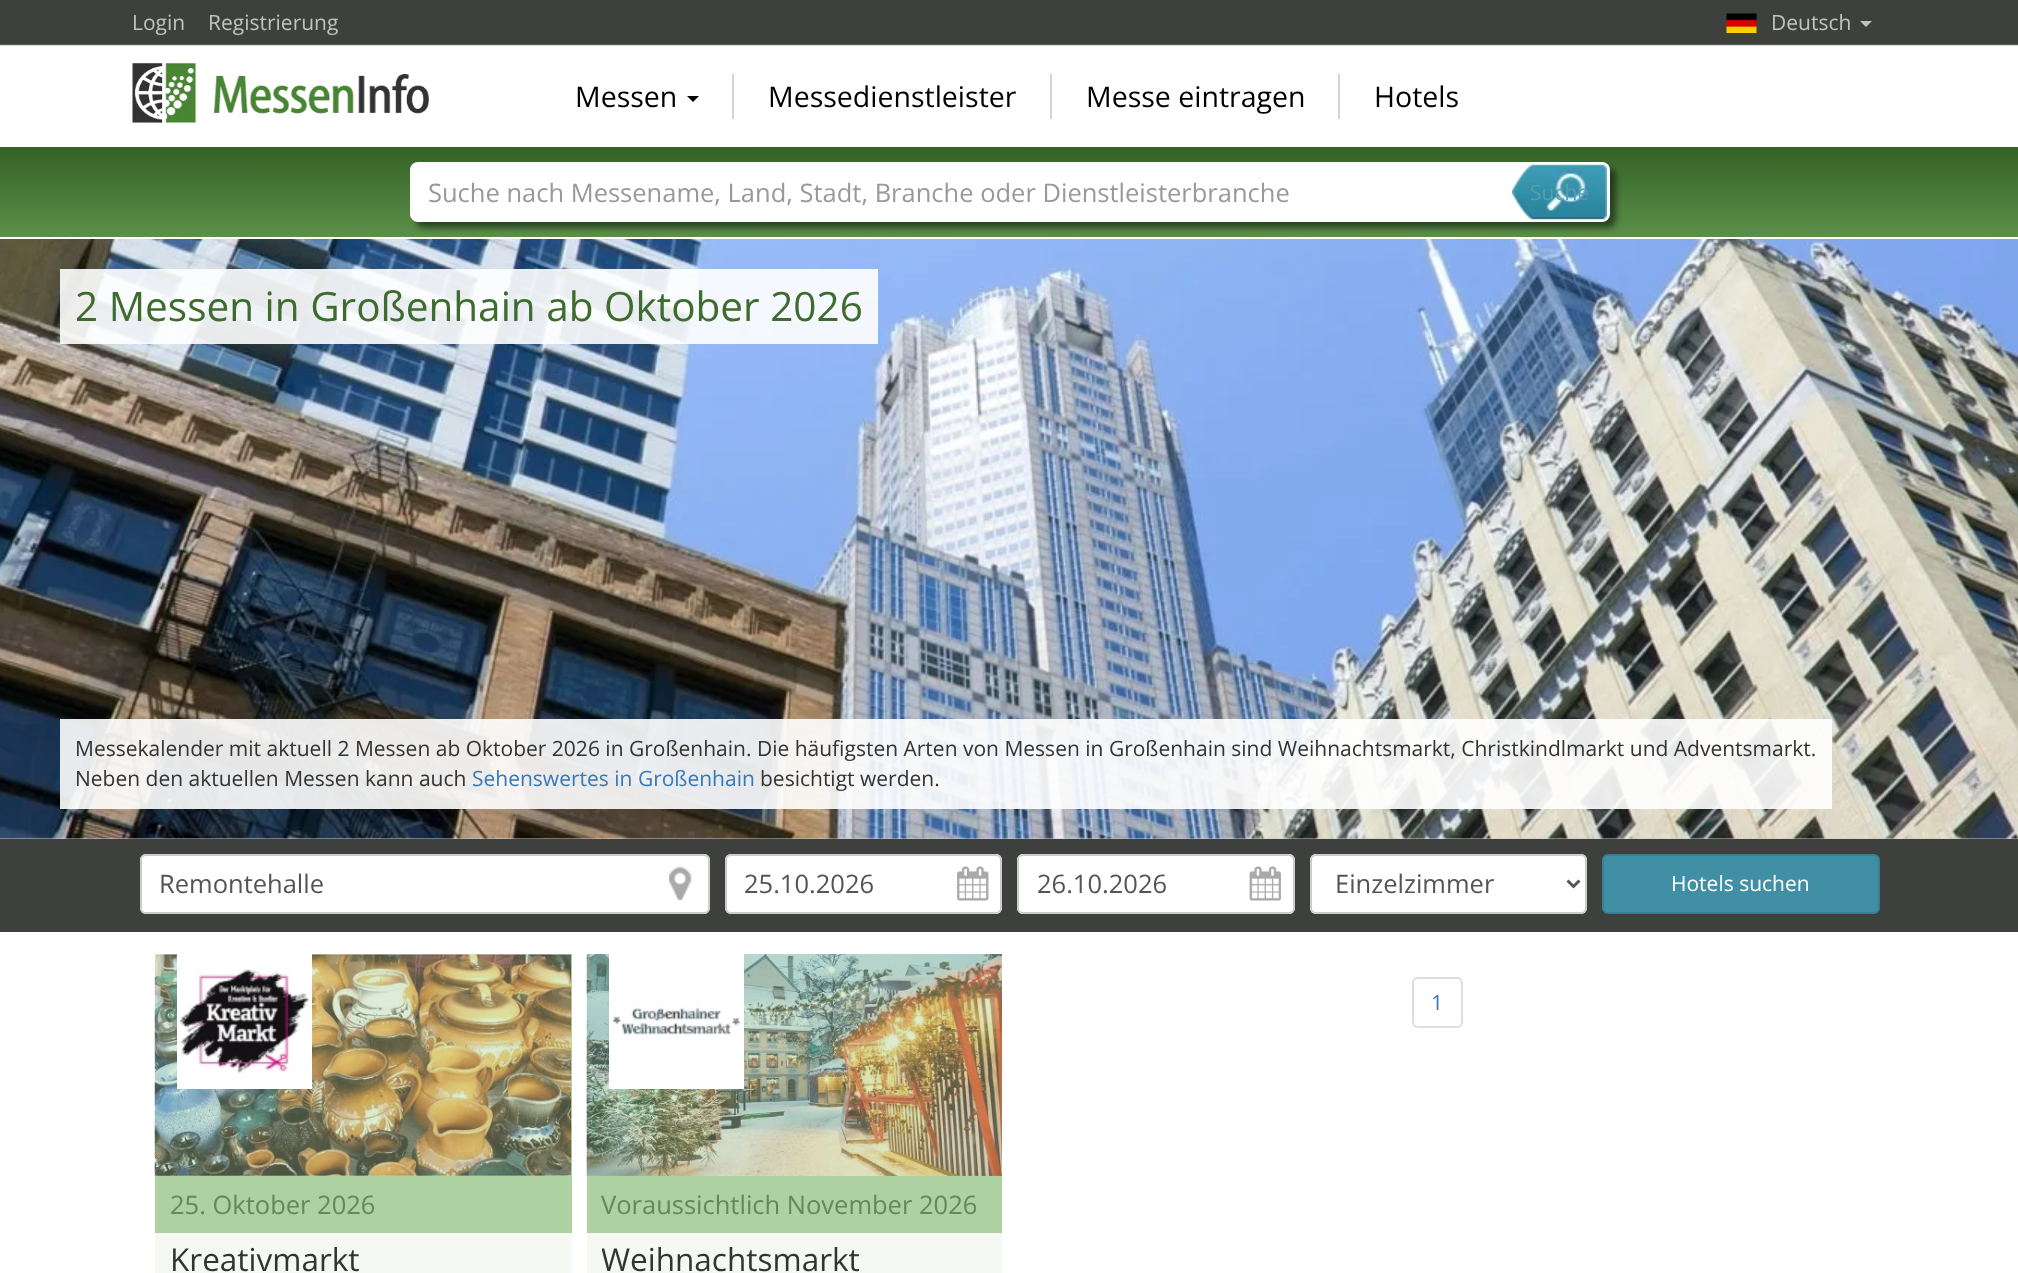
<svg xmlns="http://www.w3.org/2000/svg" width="2018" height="1273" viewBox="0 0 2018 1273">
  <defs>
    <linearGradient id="g1" gradientUnits="userSpaceOnUse" x1="1010" y1="147" x2="1010" y2="237"><stop offset="0" stop-color="#356226"/><stop offset="1" stop-color="#5b9049"/></linearGradient>
    <filter id="blur1" x="-50%" y="-200%" width="200%" height="500%"><feGaussianBlur stdDeviation="3"/></filter>
    <clipPath id="clip1"><rect x="602" y="1241" width="385" height="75"/></clipPath>
  </defs>
  <rect width="100%" height="100%" fill="#ffffff"/>
  <image x="0" y="0" width="2018" height="46" href="img1.png"/>
  <text x="132" y="30" font-family="Open Sans" font-size="21" fill="#c1c2c1">Login</text>
  <text x="208" y="30" font-family="Open Sans" font-size="21" fill="#c1c2c1">Registrierung</text>
  <image x="1726" y="13" width="31" height="20" href="img2.png"/>
  <text x="1771" y="30" font-family="Open Sans" font-size="21" fill="#c1c2c1">Deutsch</text>
  <path d="M1860 21H1872L1866 27Z" fill="#c1c2c1"/>
  <image x="132" y="63" width="297" height="60" href="img3.png"/>
  <text x="575" y="107" font-family="Open Sans" font-size="28.5" fill="#000000">Messen</text>
  <path d="M687 96H699L693 102Z" fill="#000000"/>
  <rect x="732" y="74" width="2" height="45" fill="#d3d3d3"/>
  <text x="768" y="107" font-family="Open Sans" font-size="28.5" fill="#000000">Messedienstleister</text>
  <rect x="1050" y="74" width="2" height="45" fill="#d3d3d3"/>
  <text x="1086" y="107" font-family="Open Sans" font-size="28.5" fill="#000000">Messe eintragen</text>
  <rect x="1338" y="74" width="2" height="45" fill="#d3d3d3"/>
  <text x="1374" y="107" font-family="Open Sans" font-size="28.5" fill="#000000">Hotels</text>
  <rect x="0" y="147" width="2018" height="90" fill="url(#g1)"/>
  <rect x="416" y="168" width="1200" height="60" rx="8" fill="#000000" fill-opacity="0.5" filter="url(#blur1)"/>
  <rect x="410" y="162" width="1200" height="60" rx="8" fill="#ffffff"/>
  <text x="428" y="202" font-family="Open Sans" font-size="25.5" fill="#999999">Suche nach Messename, Land, Stadt, Branche oder Dienstleisterbranche</text>
  <image x="1512" y="164" width="95" height="57" href="img4.png"/>
  <text x="1530" y="200" font-family="Open Sans" font-size="21" fill="#53a0b5">Suche</text>
  <rect x="0" y="838" width="2018" height="1" fill="#cccccc"/>
  <image x="0" y="239" width="2018" height="600" href="img5.png"/>
  <rect x="60" y="269" width="818" height="75" fill="#ffffff" fill-opacity="0.9"/>
  <text x="75" y="321" font-family="Open Sans" font-size="40.5" fill="#3e6c2f">2 Messen in Großenhain ab Oktober 2026</text>
  <rect x="60" y="719" width="1772" height="90" fill="#ffffff" fill-opacity="0.9"/>
  <text x="75" y="756" font-family="Open Sans" font-size="21" fill="#333333">Messekalender mit aktuell 2 Messen ab Oktober 2026 in Großenhain. Die häufigsten Arten von Messen in Großenhain sind Weihnachtsmarkt, Christkindlmarkt und Adventsmarkt.</text>
  <text x="75" y="786" font-family="Open Sans" font-size="21" fill="#333333">Neben den aktuellen Messen kann auch</text>
  <text x="472" y="786" font-family="Open Sans" font-size="21" fill="#337ab7">Sehenswertes in Großenhain</text>
  <text x="760" y="786" font-family="Open Sans" font-size="21" fill="#333333">besichtigt werden.</text>
  <rect x="0" y="839" width="2018" height="93" fill="#3e403d"/>
  <rect x="140" y="854" width="570" height="60" rx="6" fill="#ffffff"/>
  <image x="669" y="867" width="23" height="33" href="img6.png"/>
  <path d="M146 856H704C706 856 708 859 708 861C708 858 706 855 703 855H146C143 855 141 858 141 861C141 859 143 856 146 856Z" fill="#ececec"/>
  <rect x="141" y="855" width="568" height="58" rx="5" fill="none" stroke="#cccccc" stroke-width="2"/>
  <text x="159" y="893" font-family="Open Sans" font-size="25.5" fill="#555555">Remontehalle</text>
  <rect x="725" y="854" width="277" height="60" rx="6" fill="#ffffff"/>
  <image x="957" y="866" width="32" height="35" href="img7.png"/>
  <path d="M730 856H996C998 856 1000 859 1000 861V910C1001 909 1001 908 1001 907V860C1001 857 999 855 996 855H731C728 855 726 857 726 860V861C726 859 728 856 730 856Z" fill="#ececec"/>
  <rect x="726" y="855" width="275" height="58" rx="5" fill="none" stroke="#cccccc" stroke-width="2"/>
  <text x="744" y="893" font-family="Open Sans" font-size="25.5" fill="#555555">25.10.2026</text>
  <rect x="1017" y="854" width="278" height="60" rx="6" fill="#ffffff"/>
  <image x="1249" y="866" width="32" height="35" href="img8.png"/>
  <path d="M1023 856H1288C1291 856 1293 859 1293 861V860C1293 857 1291 855 1288 855H1024C1022 855 1020 856 1019 858C1020 857 1022 856 1023 856Z" fill="#ececec"/>
  <rect x="1018" y="855" width="276" height="58" rx="5" fill="none" stroke="#cccccc" stroke-width="2"/>
  <text x="1037" y="893" font-family="Open Sans" font-size="25.5" fill="#555555">26.10.2026</text>
  <rect x="1310" y="854" width="277" height="60" rx="6" fill="#ffffff"/>
  <path d="M1316 856H1581C1583 856 1586 859 1586 861C1586 858 1584 855 1581 855H1316C1313 855 1311 858 1311 861C1311 859 1313 856 1316 856Z" fill="#ececec"/>
  <rect x="1311" y="855" width="275" height="58" rx="5" fill="none" stroke="#cccccc" stroke-width="2"/>
  <path d="M1567.5 880.5L1573.5 886.5L1579.5 880.5" fill="none" stroke="#555555" stroke-width="3"/>
  <text x="1335" y="893" font-family="Open Sans" font-size="25.5" fill="#555555">Einzelzimmer</text>
  <rect x="1603" y="855" width="276" height="58" rx="5" fill="#408fa5" stroke="#397f93" stroke-width="2"/>
  <text x="1671" y="891" font-family="Open Sans" font-size="21" fill="#ffffff">Hotels suchen</text>
  <rect x="1413" y="978" width="49" height="49" rx="5" fill="none" stroke="#dddddd" stroke-width="2"/>
  <text x="1431" y="1010" font-family="Open Sans" font-size="21" fill="#337ab7">1</text>
  <rect x="155" y="1233" width="417" height="40" fill="#f6f8f3"/>
  <rect x="155" y="954" width="417" height="279" fill="#add1a0"/>
  <image x="154" y="954" width="418" height="222" href="img9.png"/>
  <image x="177" y="954" width="135" height="135" href="img10.png"/>
  <text x="170" y="1214" font-family="Open Sans" font-size="25.5" fill="#63885a">25. Oktober 2026</text>
  <text x="170" y="1271" font-family="Open Sans" font-size="31.5" fill="#333333">Kreativmarkt</text>
  <rect x="587" y="1233" width="415" height="40" fill="#f6f8f3"/>
  <rect x="587" y="1176" width="415" height="57" fill="#add1a0"/>
  <image x="586" y="954" width="416" height="222" href="img11.png"/>
  <image x="609" y="954" width="135" height="135" href="img12.png"/>
  <text x="601" y="1214" font-family="Open Sans" font-size="25.5" fill="#63885a">Voraussichtlich November 2026</text>
  <g clip-path="url(#clip1)">
    <text x="601" y="1271" font-family="Open Sans" font-size="31.5" fill="#333333">Weihnachtsmarkt</text>
  </g>
</svg>
